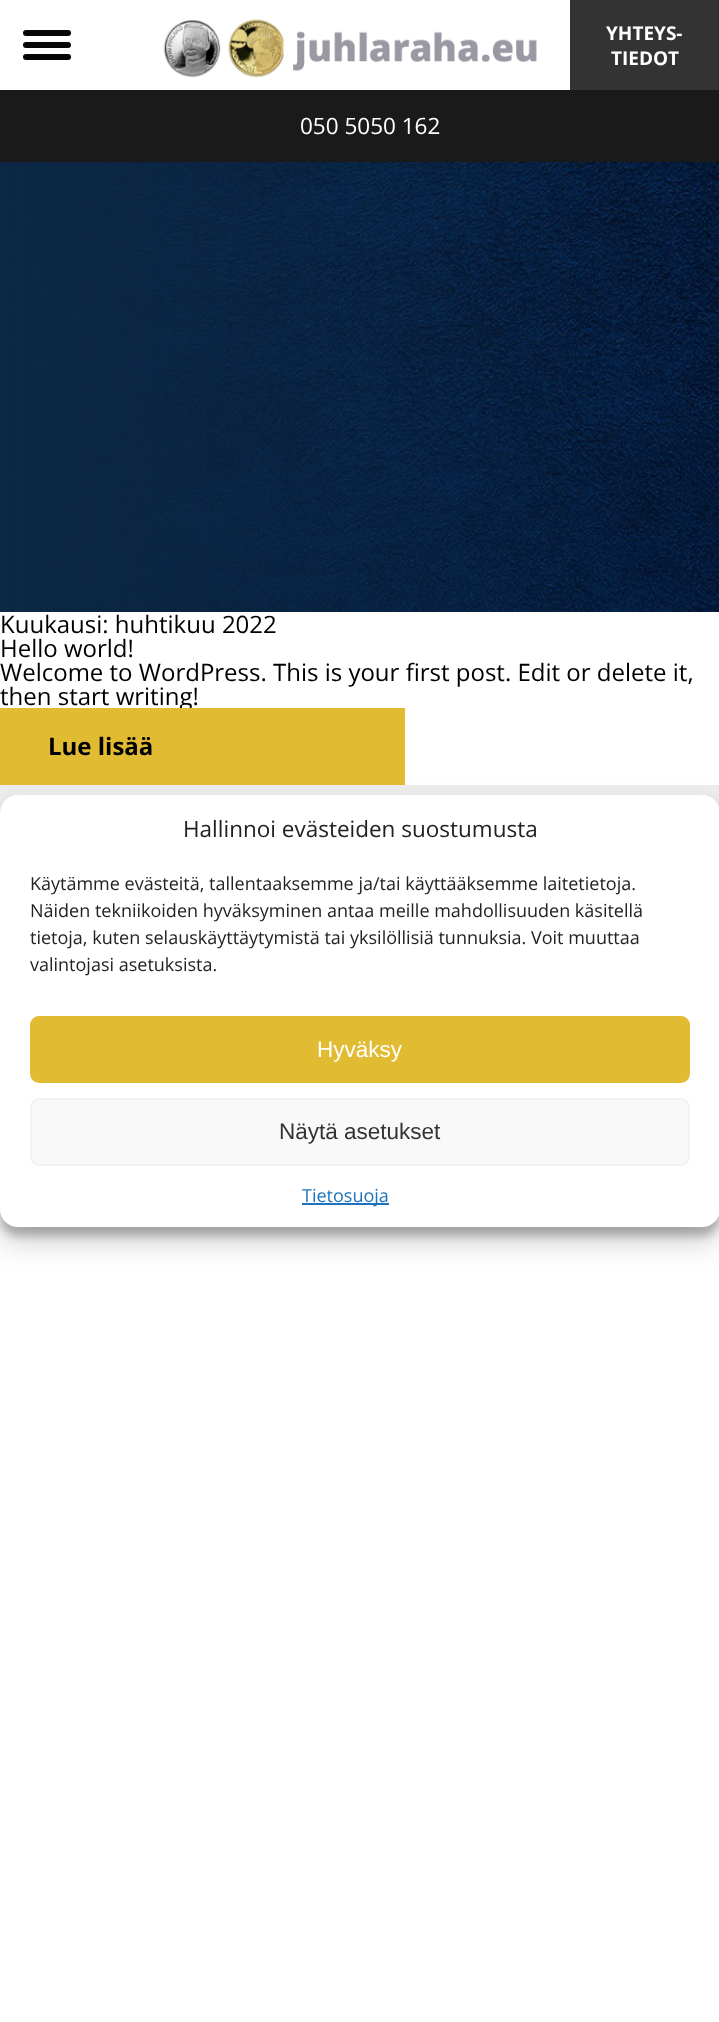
<svg xmlns="http://www.w3.org/2000/svg" width="719" height="2022" viewBox="0 0 719 2022">
  <defs>
    <filter id="blur1" x="-50%" y="-200%" width="200%" height="500%"><feGaussianBlur stdDeviation="4.5"/></filter>
    <filter id="blur2" x="-50%" y="-200%" width="200%" height="500%"><feGaussianBlur stdDeviation="15"/></filter>
  </defs>
  <rect width="100%" height="100%" fill="#ffffff"/>
  <rect x="23" y="30" width="48" height="6" rx="3" fill="#060606"/>
  <rect x="23" y="42" width="48" height="6" rx="3" fill="#060606"/>
  <rect x="23" y="54" width="48" height="6" rx="3" fill="#060606"/>
  <image x="163" y="19" width="374" height="59" href="img1.png"/>
  <rect x="570" y="0" width="149" height="90" fill="#333333"/>
  <text x="606" y="40" font-family="Open Sans" font-size="19" font-weight="bold" fill="#ffffff">YHTEYS-</text>
  <text x="611" y="65" font-family="Open Sans" font-size="19" font-weight="bold" fill="#ffffff">TIEDOT</text>
  <rect x="0" y="90" width="719" height="72" fill="#1a1a1a"/>
  <text x="300" y="134" font-family="Open Sans" font-size="22.5" fill="#ffffff">050 5050 162</text>
  <image x="0" y="162" width="719" height="450" href="img2.png"/>
  <text x="0" y="633" font-family="Open Sans" font-size="24" fill="#000000">Kuukausi: huhtikuu 2022</text>
  <text x="0" y="657" font-family="Open Sans" font-size="24" fill="#000000">Hello world!</text>
  <text x="0" y="681" font-family="Open Sans" font-size="24" fill="#000000">Welcome to WordPress. This is your first post. Edit or delete it,</text>
  <text x="0" y="705" font-family="Open Sans" font-size="24" fill="#000000">then start writing!</text>
  <rect x="0" y="708" width="405" height="77" fill="#e1bb32"/>
  <text x="48" y="755" font-family="Open Sans" font-size="24" font-weight="bold" fill="#000000">Lue lisää</text>
  <rect x="0" y="785" width="719" height="28" fill="#ededed"/>
  <rect x="0" y="804" width="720" height="432" rx="18" fill="#000000" fill-opacity="0.23" filter="url(#blur1)"/>
  <rect x="0" y="810" width="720" height="432" rx="18" fill="#000000" fill-opacity="0.19" filter="url(#blur2)"/>
  <rect x="0" y="795" width="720" height="432" rx="18" fill="#ffffff"/>
  <text x="183" y="837" font-family="Open Sans" font-size="22.5" fill="#222222">Hallinnoi evästeiden suostumusta</text>
  <text x="30" y="890" font-family="Open Sans" font-size="18" fill="#222222">Käytämme evästeitä, tallentaaksemme ja/tai käyttääksemme laitetietoja.</text>
  <text x="30" y="917" font-family="Open Sans" font-size="18" fill="#222222">Näiden tekniikoiden hyväksyminen antaa meille mahdollisuuden käsitellä</text>
  <text x="30" y="944" font-family="Open Sans" font-size="18" fill="#222222">tietoja, kuten selauskäyttäytymistä tai yksilöllisiä tunnuksia. Voit muuttaa</text>
  <text x="30" y="971" font-family="Open Sans" font-size="18" fill="#222222">valintojasi asetuksista.</text>
  <rect x="31" y="1017" width="658" height="65" rx="8" fill="#e1bb32" stroke="#e1bb32" stroke-width="2"/>
  <text x="317" y="1057" font-family="Liberation Sans" font-size="22.5" fill="#ffffff">Hyväksy</text>
  <rect x="31" y="1099" width="658" height="66" rx="8" fill="#f9f9f9" stroke="#f2f2f2" stroke-width="2"/>
  <text x="279" y="1139" font-family="Liberation Sans" font-size="22.5" fill="#333333">Näytä asetukset</text>
  <rect x="302" y="1203" width="87" height="2" fill="#1e73be"/>
  <text x="302" y="1202" font-family="Open Sans" font-size="18" fill="#1e73be">Tietosuoja</text>
</svg>
